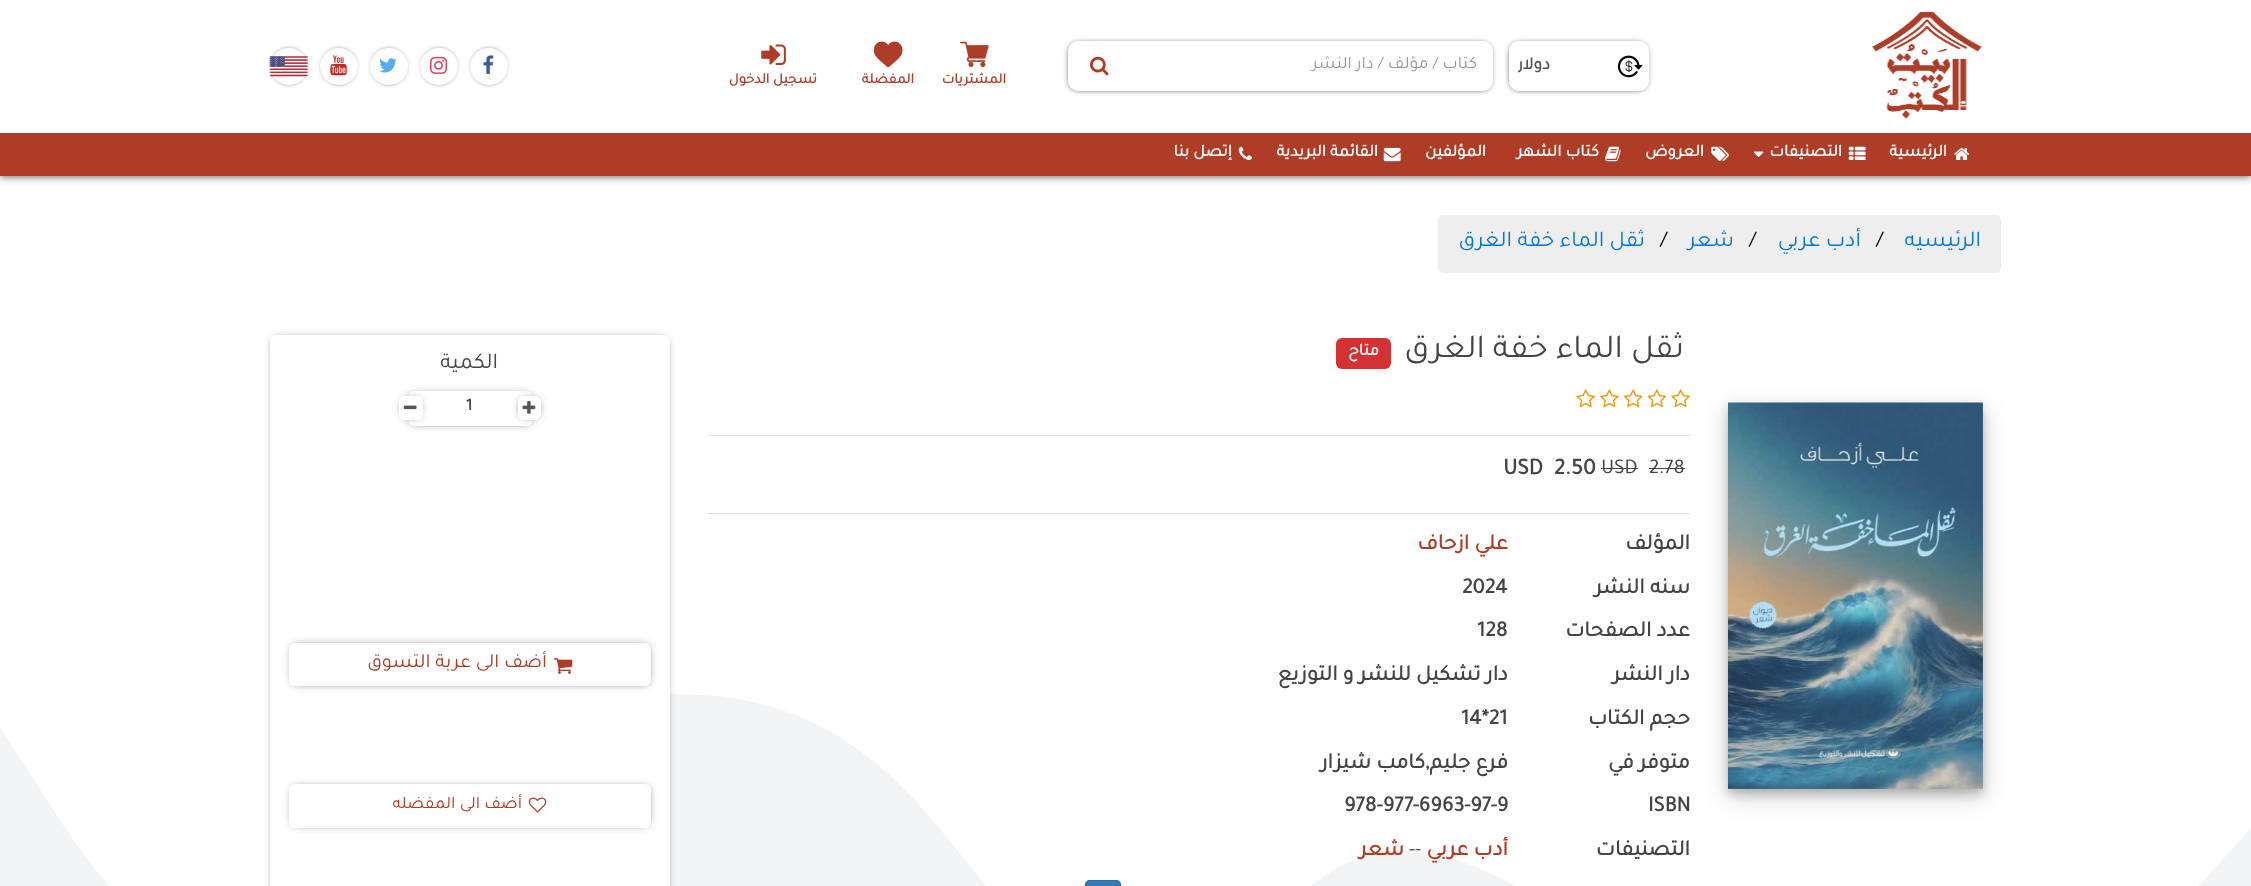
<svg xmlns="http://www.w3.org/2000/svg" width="2251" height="886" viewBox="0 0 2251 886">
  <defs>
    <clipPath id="clip1"><rect x="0" y="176" width="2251" height="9"/></clipPath>
    <filter id="blur1" x="-50%" y="-200%" width="200%" height="500%"><feGaussianBlur stdDeviation="4.5"/></filter>
    <clipPath id="clip2"><path d="M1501 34H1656V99H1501ZM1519 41H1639C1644.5 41 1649 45.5 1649 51V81C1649 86.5 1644.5 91 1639 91H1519C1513.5 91 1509 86.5 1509 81V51C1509 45.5 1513.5 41 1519 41Z" clip-rule="evenodd"/></clipPath>
    <filter id="blur2" x="-50%" y="-200%" width="200%" height="500%"><feGaussianBlur stdDeviation="3"/></filter>
    <clipPath id="clip3"><rect x="1518" y="54" width="125" height="25"/></clipPath>
    <filter id="blur3" x="-50%" y="-200%" width="200%" height="500%"><feGaussianBlur stdDeviation="2.5"/></filter>
    <filter id="blur4" x="-50%" y="-200%" width="200%" height="500%"><feGaussianBlur stdDeviation="12.5"/></filter>
    <filter id="blur5" x="-50%" y="-200%" width="200%" height="500%"><feGaussianBlur stdDeviation="5"/></filter>
    <filter id="blur6" x="-50%" y="-200%" width="200%" height="500%"><feGaussianBlur stdDeviation="4"/></filter>
  </defs>
  <rect width="100%" height="100%" fill="#ffffff"/>
  <g clip-path="url(#clip1)">
    <rect x="0" y="0" width="2251" height="176" fill="#444444" filter="url(#blur1)"/>
  </g>
  <image x="1871" y="12" width="111" height="107" href="img1.png"/>
  <image x="1618" y="55" width="25" height="23" href="img2.png"/>
  <g clip-path="url(#clip2)">
    <rect x="1511" y="44" width="135" height="45" rx="8" fill="#000000" filter="url(#blur2)"/>
  </g>
  <g clip-path="url(#clip3)">
    <text x="1550" y="69" font-family="Tajawal" font-size="17.5" font-weight="bold" direction="rtl" fill="#555555">دولار</text>
  </g>
  <rect x="1070" y="44" width="420" height="45" rx="8" fill="#000000" filter="url(#blur2)"/>
  <rect x="1068" y="41" width="425" height="50" rx="10" fill="#ffffff"/>
  <text x="1477" y="68" font-family="Tajawal" font-size="17.5" direction="rtl" fill="#999999">كتاب / مؤلف / دار النشر</text>
  <image x="1090" y="56" width="19" height="20" href="img3.png"/>
  <image x="960" y="41" width="29" height="26" href="img4.png"/>
  <text x="1006" y="83" font-family="Tajawal" font-size="14.5" font-weight="bold" direction="rtl" fill="#af3c27">المشتريات</text>
  <image x="874" y="41" width="29" height="27" href="img5.png"/>
  <text x="914" y="83" font-family="Tajawal" font-size="14.5" font-weight="bold" direction="rtl" fill="#af3c27">المفضلة</text>
  <image x="761" y="44" width="25" height="21" href="img6.png"/>
  <text x="817" y="83" font-family="Tajawal" font-size="14.5" font-weight="bold" direction="rtl" fill="#af3c27">تسجيل الدخول</text>
  <rect x="473" y="50" width="32" height="33" rx="16" fill="#000000" filter="url(#blur3)"/>
  <rect x="470" y="48" width="38" height="37" rx="18.5" fill="#ffffff"/>
  <image x="483" y="55" width="11" height="19" href="img7.png"/>
  <rect x="423" y="50" width="32" height="33" rx="16" fill="#000000" filter="url(#blur3)"/>
  <rect x="420" y="48" width="38" height="37" rx="18.5" fill="#ffffff"/>
  <image x="430" y="56" width="18" height="18" href="img8.png"/>
  <rect x="373" y="50" width="32" height="33" rx="16" fill="#000000" filter="url(#blur3)"/>
  <rect x="370" y="48" width="38" height="37" rx="18.5" fill="#ffffff"/>
  <image x="379" y="58" width="18" height="15" href="img9.png"/>
  <rect x="323" y="50" width="32" height="33" rx="16" fill="#000000" filter="url(#blur3)"/>
  <rect x="320" y="48" width="38" height="37" rx="18.5" fill="#ffffff"/>
  <image x="330" y="55" width="17" height="21" href="img10.png"/>
  <rect x="273" y="50" width="32" height="33" rx="16" fill="#000000" filter="url(#blur3)"/>
  <rect x="270" y="48" width="38" height="37" rx="18.5" fill="#ffffff"/>
  <image x="269" y="56" width="39" height="21" href="img11.png"/>
  <rect x="0" y="133" width="2251" height="43" fill="#af3c27"/>
  <image x="1954" y="147" width="16" height="13" href="img12.png"/>
  <text x="1947" y="156" font-family="Tajawal" font-size="17" font-weight="bold" direction="rtl" fill="#ffffff">الرئيسية</text>
  <image x="1848" y="146" width="18" height="14" href="img13.png"/>
  <text x="1842" y="156" font-family="Tajawal" font-size="17" font-weight="bold" direction="rtl" fill="#ffffff">التصنيفات</text>
  <image x="1753" y="151" width="11" height="6" href="img14.png"/>
  <image x="1711" y="146" width="19" height="15" href="img15.png"/>
  <text x="1704" y="156" font-family="Tajawal" font-size="17" font-weight="bold" direction="rtl" fill="#ffffff">العروض</text>
  <image x="1605" y="146" width="16" height="16" href="img16.png"/>
  <text x="1599" y="156" font-family="Tajawal" font-size="17" font-weight="bold" direction="rtl" fill="#ffffff">كتاب الشهر</text>
  <text x="1486" y="156" font-family="Tajawal" font-size="17" font-weight="bold" direction="rtl" fill="#ffffff">المؤلفين</text>
  <image x="1383" y="147" width="18" height="15" href="img17.png"/>
  <text x="1378" y="156" font-family="Tajawal" font-size="17" font-weight="bold" direction="rtl" fill="#ffffff">القائمة البريدية</text>
  <image x="1238" y="146" width="14" height="14" href="img18.png"/>
  <text x="1232" y="156" font-family="Tajawal" font-size="17" font-weight="bold" direction="rtl" fill="#ffffff">إتصل بنا</text>
  <rect x="1438" y="215" width="563" height="58" rx="5" fill="#eeeeee"/>
  <text x="1981" y="246" font-family="Tajawal" font-size="22.5" direction="rtl" fill="#0275d8">الرئيسيه</text>
  <text x="1876" y="246" font-family="Tajawal" font-size="22.5" fill="#000000">/</text>
  <text x="1861" y="246" font-family="Tajawal" font-size="22.5" direction="rtl" fill="#0275d8">أدب عربي</text>
  <text x="1749" y="246" font-family="Tajawal" font-size="22.5" fill="#000000">/</text>
  <text x="1734" y="246" font-family="Tajawal" font-size="22.5" direction="rtl" fill="#0275d8">شعر</text>
  <text x="1660" y="246" font-family="Tajawal" font-size="22.5" fill="#000000">/</text>
  <text x="1645" y="246" font-family="Tajawal" font-size="22.5" direction="rtl" fill="#0275d8">ثقل الماء خفة الغرق</text>
  <path d="M0 728L38 786C75 845 150 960 225 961C300 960 375 845 450 778C525 710 600 695 675 694C750 695 825 710 901 786C976 860 1051 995 1126 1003C1201 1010 1276 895 1351 861C1426 828 1501 878 1576 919C1651 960 1726 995 1801 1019C1876 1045 1951 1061 2026 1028C2101 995 2176 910 2214 869L2251 828V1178H0Z" fill="#f3f4f5"/>
  <rect x="1728" y="410" width="255" height="386" fill="#000000" fill-opacity="0.19" filter="url(#blur4)"/>
  <rect x="1728" y="408" width="255" height="386" fill="#000000" fill-opacity="0.2" filter="url(#blur5)"/>
  <image x="1728" y="402" width="255" height="387" href="img19.png"/>
  <text x="1684" y="357" font-family="Tajawal" font-size="33.75" direction="rtl" fill="#444444">ثقل الماء خفة الغرق</text>
  <rect x="1336" y="338" width="55" height="31" rx="6" fill="#d33134"/>
  <text x="1379" y="355" font-family="Tajawal" font-size="17" font-weight="bold" direction="rtl" fill="#ffffff">متاح</text>
  <image x="1671" y="389" width="19" height="19" href="img20.png"/>
  <image x="1647" y="389" width="20" height="19" href="img21.png"/>
  <image x="1623" y="389" width="20" height="19" href="img22.png"/>
  <image x="1600" y="389" width="19" height="19" href="img23.png"/>
  <image x="1576" y="389" width="19" height="19" href="img20.png"/>
  <rect x="708" y="435" width="982" height="1" fill="#dddddd"/>
  <rect x="708" y="513" width="982" height="1" fill="#dddddd"/>
  <text x="1649" y="473" font-family="Tajawal" font-size="21" fill="#444444">2.78</text>
  <rect x="1649" y="468" width="36" height="1" fill="#444444"/>
  <text x="1601" y="473" font-family="Tajawal" font-size="21" fill="#444444">USD</text>
  <rect x="1601" y="468" width="37" height="1" fill="#444444"/>
  <text x="1554" y="474" font-family="Tajawal" font-size="23" font-weight="bold" fill="#444444">2.50</text>
  <text x="1503" y="474" font-family="Tajawal" font-size="23" font-weight="bold" fill="#444444">USD</text>
  <text x="1690" y="549" font-family="Tajawal" font-size="22" font-weight="bold" direction="rtl" fill="#444444">المؤلف</text>
  <text x="1508" y="549" font-family="Tajawal" font-size="22" font-weight="bold" direction="rtl" fill="#af3c27">علي ازحاف</text>
  <text x="1690" y="593" font-family="Tajawal" font-size="22" font-weight="bold" direction="rtl" fill="#444444">سنه النشر</text>
  <text x="1462" y="593" font-family="Tajawal" font-size="22" font-weight="bold" fill="#444444">2024</text>
  <text x="1690" y="636" font-family="Tajawal" font-size="22" font-weight="bold" direction="rtl" fill="#444444">عدد الصفحات</text>
  <text x="1477" y="636" font-family="Tajawal" font-size="22" font-weight="bold" fill="#444444">128</text>
  <text x="1690" y="680" font-family="Tajawal" font-size="22" font-weight="bold" direction="rtl" fill="#444444">دار النشر</text>
  <text x="1508" y="680" font-family="Tajawal" font-size="22" font-weight="bold" direction="rtl" fill="#444444">دار تشكيل للنشر و التوزيع</text>
  <text x="1690" y="724" font-family="Tajawal" font-size="22" font-weight="bold" direction="rtl" fill="#444444">حجم الكتاب</text>
  <text x="1461" y="724" font-family="Tajawal" font-size="22" font-weight="bold" fill="#444444">14*21</text>
  <text x="1690" y="768" font-family="Tajawal" font-size="22" font-weight="bold" direction="rtl" fill="#444444">متوفر في</text>
  <text x="1508" y="768" font-family="Tajawal" font-size="22" font-weight="bold" direction="rtl" fill="#444444">فرع جليم,كامب شيزار</text>
  <text x="1648" y="811" font-family="Tajawal" font-size="22" font-weight="bold" fill="#444444">ISBN</text>
  <text x="1344" y="811" font-family="Tajawal" font-size="22" font-weight="bold" fill="#444444">978-977-6963-97-9</text>
  <text x="1690" y="855" font-family="Tajawal" font-size="22" font-weight="bold" direction="rtl" fill="#444444">التصنيفات</text>
  <text x="1508" y="855" font-family="Tajawal" font-size="22" font-weight="bold" direction="rtl" fill="#af3c27">أدب عربي</text>
  <text x="1409" y="855" font-family="Tajawal" font-size="22" fill="#444444">--</text>
  <text x="1404" y="855" font-family="Tajawal" font-size="22" font-weight="bold" direction="rtl" fill="#af3c27">شعر</text>
  <path d="M1090 880H1116C1119 880 1121 882 1121 885V886H1085V885C1085 882 1087 880 1090 880Z" fill="#337ab7"/>
  <rect x="1085.5" y="880.5" width="35" height="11" rx="4.5" fill="none" stroke="#2e6da4"/>
  <rect x="274" y="339" width="392" height="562" rx="2.5" fill="#555555" filter="url(#blur6)"/>
  <path d="M276 335H664C667.5 335 670 337.5 670 341V886H270V341C270 337.5 272.5 335 276 335Z" fill="#ffffff"/>
  <text x="498" y="368" font-family="Tajawal" font-size="22.5" direction="rtl" fill="#444444">الكمية</text>
  <rect x="411" y="395" width="118" height="28" rx="2.5" fill="#555555" filter="url(#blur6)"/>
  <rect x="408" y="391" width="125" height="35" rx="6" fill="#ffffff"/>
  <rect x="521" y="400" width="17" height="16" rx="2.5" fill="#555555" filter="url(#blur6)"/>
  <rect x="518" y="396" width="23" height="24" rx="6" fill="#ffffff"/>
  <image x="522" y="401" width="14" height="13" href="img24.png"/>
  <text x="466" y="410" font-family="Tajawal" font-size="17" font-weight="bold" fill="#444444">1</text>
  <rect x="403" y="400" width="16" height="16" fill="#ffffff" filter="url(#blur1)"/>
  <rect x="403" y="400" width="16" height="16" rx="2.5" fill="#555555" filter="url(#blur6)"/>
  <rect x="399" y="396" width="24" height="24" rx="6" fill="#ffffff"/>
  <image x="403" y="405" width="14" height="5" href="img25.png"/>
  <rect x="293" y="646" width="355" height="37" rx="2.5" fill="#555555" filter="url(#blur6)"/>
  <rect x="289" y="643" width="362" height="43" rx="6" fill="#ffffff"/>
  <image x="553" y="658" width="20" height="16" href="img26.png"/>
  <text x="547" y="667" font-family="Tajawal" font-size="20" direction="rtl" fill="#af3c27">أضف الى عربة التسوق</text>
  <rect x="293" y="788" width="355" height="36" rx="2.5" fill="#555555" filter="url(#blur6)"/>
  <rect x="289" y="784" width="362" height="44" rx="6" fill="#ffffff"/>
  <image x="528" y="797" width="19" height="16" href="img27.png"/>
  <text x="522" y="808" font-family="Tajawal" font-size="17.5" direction="rtl" fill="#af3c27">أضف الى المفضله</text>
</svg>
